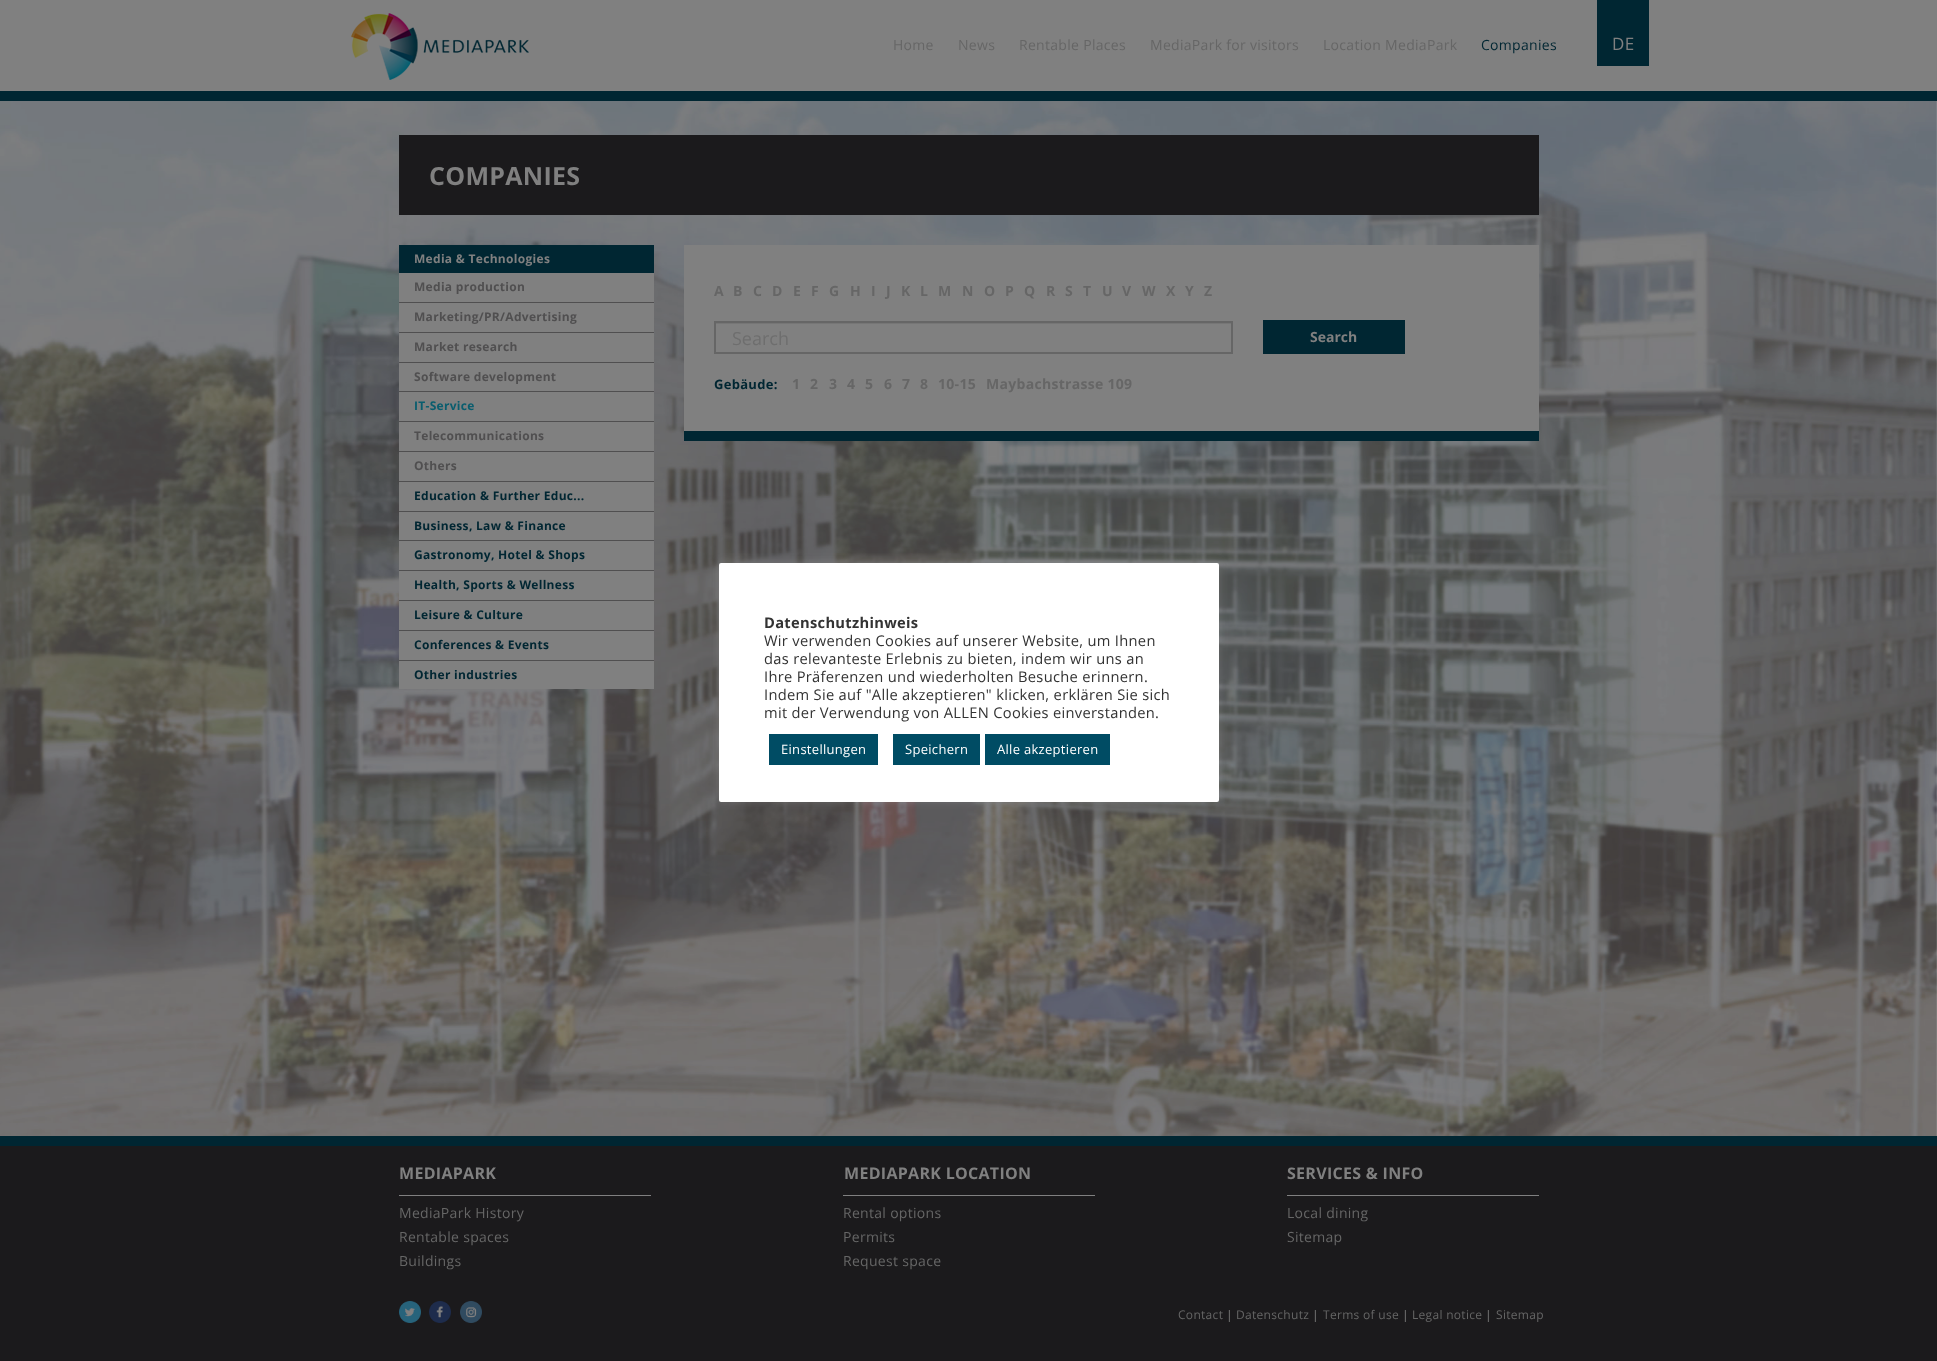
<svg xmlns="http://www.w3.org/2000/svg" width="1937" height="1361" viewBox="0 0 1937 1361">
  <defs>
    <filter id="blur1" x="-50%" y="-200%" width="200%" height="500%"><feGaussianBlur stdDeviation="5"/></filter>
  </defs>
  <rect width="100%" height="100%" fill="#ffffff"/>
  <image x="0" y="101" width="1937" height="1035" href="img1.png"/>
  <rect x="0" y="0" width="1937" height="91" fill="#808080"/>
  <rect x="0" y="91" width="1937" height="10" fill="#002632"/>
  <image x="351" y="13" width="178" height="67" href="img2.png"/>
  <text x="893" y="50" font-family="Open Sans" font-size="14" letter-spacing="0.3" fill="#666666">Home</text>
  <text x="958" y="50" font-family="Open Sans" font-size="14" letter-spacing="0.3" fill="#666666">News</text>
  <text x="1019" y="50" font-family="Open Sans" font-size="14" letter-spacing="0.3" fill="#666666">Rentable Places</text>
  <text x="1150" y="50" font-family="Open Sans" font-size="14" letter-spacing="0.3" fill="#666666">MediaPark for visitors</text>
  <text x="1323" y="50" font-family="Open Sans" font-size="14" letter-spacing="0.3" fill="#666666">Location MediaPark</text>
  <text x="1481" y="50" font-family="Open Sans" font-size="14" letter-spacing="0.3" fill="#002632">Companies</text>
  <rect x="1597" y="0" width="52" height="66" fill="#002632"/>
  <text x="1612" y="50" font-family="Open Sans" font-size="17" letter-spacing="0.3" fill="#808080">DE</text>
  <rect x="399" y="135" width="1140" height="80" fill="#1b1a1c"/>
  <text x="429" y="185" font-family="Open Sans" font-size="25" font-weight="bold" letter-spacing="0.3" fill="#808080">COMPANIES</text>
  <rect x="399" y="245" width="255" height="28" fill="#002632"/>
  <rect x="399" y="481" width="255" height="1" fill="#504f50"/>
  <text x="414" y="263" font-family="Open Sans" font-size="12" font-weight="bold" letter-spacing="0.3" fill="#808080">Media &amp; Technologies</text>
  <rect x="399" y="273" width="255" height="29" fill="#808080"/>
  <rect x="399" y="302" width="255" height="1" fill="#504f50"/>
  <text x="414" y="291" font-family="Open Sans" font-size="12" font-weight="bold" letter-spacing="0.3" fill="#504f50">Media production</text>
  <rect x="399" y="303" width="255" height="29" fill="#808080"/>
  <rect x="399" y="332" width="255" height="1" fill="#504f50"/>
  <text x="414" y="321" font-family="Open Sans" font-size="12" font-weight="bold" letter-spacing="0.3" fill="#504f50">Marketing/PR/Advertising</text>
  <rect x="399" y="333" width="255" height="29" fill="#808080"/>
  <rect x="399" y="362" width="255" height="1" fill="#504f50"/>
  <text x="414" y="351" font-family="Open Sans" font-size="12" font-weight="bold" letter-spacing="0.3" fill="#504f50">Market research</text>
  <rect x="399" y="363" width="255" height="28" fill="#808080"/>
  <rect x="399" y="391" width="255" height="1" fill="#504f50"/>
  <text x="414" y="381" font-family="Open Sans" font-size="12" font-weight="bold" letter-spacing="0.3" fill="#504f50">Software development</text>
  <rect x="399" y="392" width="255" height="29" fill="#808080"/>
  <rect x="399" y="421" width="255" height="1" fill="#504f50"/>
  <text x="414" y="410" font-family="Open Sans" font-size="12" font-weight="bold" letter-spacing="0.3" fill="#0a5d6e">IT-Service</text>
  <rect x="399" y="422" width="255" height="29" fill="#808080"/>
  <rect x="399" y="451" width="255" height="1" fill="#504f50"/>
  <text x="414" y="440" font-family="Open Sans" font-size="12" font-weight="bold" letter-spacing="0.3" fill="#504f50">Telecommunications</text>
  <rect x="399" y="452" width="255" height="29" fill="#808080"/>
  <text x="414" y="470" font-family="Open Sans" font-size="12" font-weight="bold" letter-spacing="0.3" fill="#504f50">Others</text>
  <rect x="399" y="482" width="255" height="29" fill="#808080"/>
  <rect x="399" y="511" width="255" height="1" fill="#504f50"/>
  <text x="414" y="500" font-family="Open Sans" font-size="12" font-weight="bold" letter-spacing="0.3" fill="#002632">Education &amp; Further Educ...</text>
  <rect x="399" y="512" width="255" height="28" fill="#808080"/>
  <rect x="399" y="540" width="255" height="1" fill="#504f50"/>
  <text x="414" y="530" font-family="Open Sans" font-size="12" font-weight="bold" letter-spacing="0.3" fill="#002632">Business, Law &amp; Finance</text>
  <rect x="399" y="541" width="255" height="29" fill="#808080"/>
  <rect x="399" y="570" width="255" height="1" fill="#504f50"/>
  <text x="414" y="559" font-family="Open Sans" font-size="12" font-weight="bold" letter-spacing="0.3" fill="#002632">Gastronomy, Hotel &amp; Shops</text>
  <rect x="399" y="571" width="255" height="29" fill="#808080"/>
  <rect x="399" y="600" width="255" height="1" fill="#504f50"/>
  <text x="414" y="589" font-family="Open Sans" font-size="12" font-weight="bold" letter-spacing="0.3" fill="#002632">Health, Sports &amp; Wellness</text>
  <rect x="399" y="601" width="255" height="29" fill="#808080"/>
  <rect x="399" y="630" width="255" height="1" fill="#504f50"/>
  <text x="414" y="619" font-family="Open Sans" font-size="12" font-weight="bold" letter-spacing="0.3" fill="#002632">Leisure &amp; Culture</text>
  <rect x="399" y="631" width="255" height="29" fill="#808080"/>
  <rect x="399" y="660" width="255" height="1" fill="#504f50"/>
  <text x="414" y="649" font-family="Open Sans" font-size="12" font-weight="bold" letter-spacing="0.3" fill="#002632">Conferences &amp; Events</text>
  <rect x="399" y="661" width="255" height="28" fill="#808080"/>
  <text x="414" y="679" font-family="Open Sans" font-size="12" font-weight="bold" letter-spacing="0.3" fill="#002632">Other industries</text>
  <rect x="684" y="245" width="855" height="186" fill="#808080"/>
  <rect x="684" y="431" width="855" height="10" fill="#002632"/>
  <text x="714" y="296" font-family="Open Sans" font-size="14" font-weight="bold" letter-spacing="0.3" fill="#666666">A</text>
  <text x="733" y="296" font-family="Open Sans" font-size="14" font-weight="bold" letter-spacing="0.3" fill="#666666">B</text>
  <text x="753" y="296" font-family="Open Sans" font-size="14" font-weight="bold" letter-spacing="0.3" fill="#666666">C</text>
  <text x="772" y="296" font-family="Open Sans" font-size="14" font-weight="bold" letter-spacing="0.3" fill="#666666">D</text>
  <text x="793" y="296" font-family="Open Sans" font-size="14" font-weight="bold" letter-spacing="0.3" fill="#666666">E</text>
  <text x="811" y="296" font-family="Open Sans" font-size="14" font-weight="bold" letter-spacing="0.3" fill="#666666">F</text>
  <text x="829" y="296" font-family="Open Sans" font-size="14" font-weight="bold" letter-spacing="0.3" fill="#666666">G</text>
  <text x="850" y="296" font-family="Open Sans" font-size="14" font-weight="bold" letter-spacing="0.3" fill="#666666">H</text>
  <text x="871" y="296" font-family="Open Sans" font-size="14" font-weight="bold" letter-spacing="0.3" fill="#666666">I</text>
  <text x="886" y="296" font-family="Open Sans" font-size="14" font-weight="bold" letter-spacing="0.3" fill="#666666">J</text>
  <text x="901" y="296" font-family="Open Sans" font-size="14" font-weight="bold" letter-spacing="0.3" fill="#666666">K</text>
  <text x="920" y="296" font-family="Open Sans" font-size="14" font-weight="bold" letter-spacing="0.3" fill="#666666">L</text>
  <text x="938" y="296" font-family="Open Sans" font-size="14" font-weight="bold" letter-spacing="0.3" fill="#666666">M</text>
  <text x="962" y="296" font-family="Open Sans" font-size="14" font-weight="bold" letter-spacing="0.3" fill="#666666">N</text>
  <text x="984" y="296" font-family="Open Sans" font-size="14" font-weight="bold" letter-spacing="0.3" fill="#666666">O</text>
  <text x="1005" y="296" font-family="Open Sans" font-size="14" font-weight="bold" letter-spacing="0.3" fill="#666666">P</text>
  <text x="1024" y="296" font-family="Open Sans" font-size="14" font-weight="bold" letter-spacing="0.3" fill="#666666">Q</text>
  <text x="1046" y="296" font-family="Open Sans" font-size="14" font-weight="bold" letter-spacing="0.3" fill="#666666">R</text>
  <text x="1065" y="296" font-family="Open Sans" font-size="14" font-weight="bold" letter-spacing="0.3" fill="#666666">S</text>
  <text x="1083" y="296" font-family="Open Sans" font-size="14" font-weight="bold" letter-spacing="0.3" fill="#666666">T</text>
  <text x="1102" y="296" font-family="Open Sans" font-size="14" font-weight="bold" letter-spacing="0.3" fill="#666666">U</text>
  <text x="1122" y="296" font-family="Open Sans" font-size="14" font-weight="bold" letter-spacing="0.3" fill="#666666">V</text>
  <text x="1142" y="296" font-family="Open Sans" font-size="14" font-weight="bold" letter-spacing="0.3" fill="#666666">W</text>
  <text x="1166" y="296" font-family="Open Sans" font-size="14" font-weight="bold" letter-spacing="0.3" fill="#666666">X</text>
  <text x="1185" y="296" font-family="Open Sans" font-size="14" font-weight="bold" letter-spacing="0.3" fill="#666666">Y</text>
  <text x="1204" y="296" font-family="Open Sans" font-size="14" font-weight="bold" letter-spacing="0.3" fill="#666666">Z</text>
  <rect x="716" y="323" width="515" height="1" fill="#767676"/>
  <rect x="715" y="322" width="517" height="31" fill="none" stroke="#666666" stroke-width="2"/>
  <text x="732" y="345" font-family="Open Sans" font-size="18" fill="#6e6e6e">Search</text>
  <rect x="1263" y="320" width="142" height="34" fill="#002632"/>
  <text x="1310" y="342" font-family="Open Sans" font-size="14" font-weight="bold" fill="#808080">Search</text>
  <text x="714" y="389" font-family="Open Sans" font-size="13" font-weight="bold" letter-spacing="0.3" fill="#002632">Gebäude:</text>
  <text x="792" y="389" font-family="Open Sans" font-size="14" font-weight="bold" letter-spacing="0.3" fill="#666666">1</text>
  <text x="810" y="389" font-family="Open Sans" font-size="14" font-weight="bold" letter-spacing="0.3" fill="#666666">2</text>
  <text x="829" y="389" font-family="Open Sans" font-size="14" font-weight="bold" letter-spacing="0.3" fill="#666666">3</text>
  <text x="847" y="389" font-family="Open Sans" font-size="14" font-weight="bold" letter-spacing="0.3" fill="#666666">4</text>
  <text x="865" y="389" font-family="Open Sans" font-size="14" font-weight="bold" letter-spacing="0.3" fill="#666666">5</text>
  <text x="884" y="389" font-family="Open Sans" font-size="14" font-weight="bold" letter-spacing="0.3" fill="#666666">6</text>
  <text x="902" y="389" font-family="Open Sans" font-size="14" font-weight="bold" letter-spacing="0.3" fill="#666666">7</text>
  <text x="920" y="389" font-family="Open Sans" font-size="14" font-weight="bold" letter-spacing="0.3" fill="#666666">8</text>
  <text x="938" y="389" font-family="Open Sans" font-size="14" font-weight="bold" letter-spacing="0.3" fill="#666666">10-15</text>
  <text x="986" y="389" font-family="Open Sans" font-size="14" font-weight="bold" letter-spacing="0.3" fill="#666666">Maybachstrasse 109</text>
  <rect x="0" y="1146" width="1937" height="215" fill="#1b1a1c"/>
  <rect x="0" y="1136" width="1937" height="10" fill="#002632"/>
  <text x="399" y="1179" font-family="Open Sans" font-size="16" font-weight="bold" letter-spacing="0.3" fill="#808080">MEDIAPARK</text>
  <rect x="399" y="1195" width="252" height="1" fill="#808080"/>
  <text x="399" y="1218" font-family="Open Sans" font-size="14" letter-spacing="0.3" fill="#666666">MediaPark History</text>
  <text x="399" y="1242" font-family="Open Sans" font-size="14" letter-spacing="0.3" fill="#666666">Rentable spaces</text>
  <text x="399" y="1266" font-family="Open Sans" font-size="14" letter-spacing="0.3" fill="#666666">Buildings</text>
  <text x="844" y="1179" font-family="Open Sans" font-size="16" font-weight="bold" letter-spacing="0.3" fill="#808080">MEDIAPARK LOCATION</text>
  <rect x="843" y="1195" width="252" height="1" fill="#808080"/>
  <text x="843" y="1218" font-family="Open Sans" font-size="14" letter-spacing="0.3" fill="#666666">Rental options</text>
  <text x="843" y="1242" font-family="Open Sans" font-size="14" letter-spacing="0.3" fill="#666666">Permits</text>
  <text x="843" y="1266" font-family="Open Sans" font-size="14" letter-spacing="0.3" fill="#666666">Request space</text>
  <text x="1287" y="1179" font-family="Open Sans" font-size="16" font-weight="bold" letter-spacing="0.3" fill="#808080">SERVICES &amp; INFO</text>
  <rect x="1287" y="1195" width="252" height="1" fill="#808080"/>
  <text x="1287" y="1218" font-family="Open Sans" font-size="14" letter-spacing="0.3" fill="#666666">Local dining</text>
  <text x="1287" y="1242" font-family="Open Sans" font-size="14" letter-spacing="0.3" fill="#666666">Sitemap</text>
  <image x="399" y="1301" width="22" height="22" href="img3.png"/>
  <image x="429" y="1301" width="22" height="22" href="img4.png"/>
  <image x="460" y="1301" width="22" height="22" href="img5.png"/>
  <text x="1178" y="1319" font-family="Open Sans" font-size="12" letter-spacing="0.3" fill="#666666">Contact</text>
  <text x="1226" y="1319" font-family="Open Sans" font-size="12" letter-spacing="0.3" fill="#808080">|</text>
  <text x="1236" y="1319" font-family="Open Sans" font-size="12" letter-spacing="0.3" fill="#666666">Datenschutz</text>
  <text x="1312" y="1319" font-family="Open Sans" font-size="12" letter-spacing="0.3" fill="#808080">|</text>
  <text x="1323" y="1319" font-family="Open Sans" font-size="12" letter-spacing="0.3" fill="#666666">Terms of use</text>
  <text x="1402" y="1319" font-family="Open Sans" font-size="12" letter-spacing="0.3" fill="#808080">|</text>
  <text x="1412" y="1319" font-family="Open Sans" font-size="12" letter-spacing="0.3" fill="#666666">Legal notice</text>
  <text x="1485" y="1319" font-family="Open Sans" font-size="12" letter-spacing="0.3" fill="#808080">|</text>
  <text x="1496" y="1319" font-family="Open Sans" font-size="12" letter-spacing="0.3" fill="#666666">Sitemap</text>
  <rect x="719" y="562" width="500" height="239" rx="2" fill="#acabab" fill-opacity="0.3" filter="url(#blur1)"/>
  <rect x="719" y="563" width="500" height="239" rx="2" fill="#ffffff"/>
  <text x="764" y="628" font-family="Open Sans" font-size="14.7" font-weight="bold" letter-spacing="0.3" fill="#333333">Datenschutzhinweis</text>
  <text x="764" y="646" font-family="Open Sans" font-size="14.7" letter-spacing="0.3" fill="#333333">Wir verwenden Cookies auf unserer Website, um Ihnen</text>
  <text x="764" y="664" font-family="Open Sans" font-size="14.7" letter-spacing="0.3" fill="#333333">das relevanteste Erlebnis zu bieten, indem wir uns an</text>
  <text x="764" y="682" font-family="Open Sans" font-size="14.7" letter-spacing="0.3" fill="#333333">Ihre Präferenzen und wiederholten Besuche erinnern.</text>
  <text x="764" y="700" font-family="Open Sans" font-size="14.7" letter-spacing="0.3" fill="#333333">Indem Sie auf "Alle akzeptieren" klicken, erklären Sie sich</text>
  <text x="764" y="718" font-family="Open Sans" font-size="14.7" letter-spacing="0.3" fill="#333333">mit der Verwendung von ALLEN Cookies einverstanden.</text>
  <rect x="769" y="734" width="109" height="31" fill="#004c64"/>
  <text x="781" y="754" font-family="Open Sans" font-size="13" letter-spacing="0.3" fill="#ffffff">Einstellungen</text>
  <rect x="893" y="734" width="87" height="31" fill="#004c64"/>
  <text x="905" y="754" font-family="Open Sans" font-size="13" letter-spacing="0.3" fill="#ffffff">Speichern</text>
  <rect x="985" y="734" width="125" height="31" fill="#004c64"/>
  <text x="997" y="754" font-family="Open Sans" font-size="13" letter-spacing="0.3" fill="#ffffff">Alle akzeptieren</text>
</svg>
